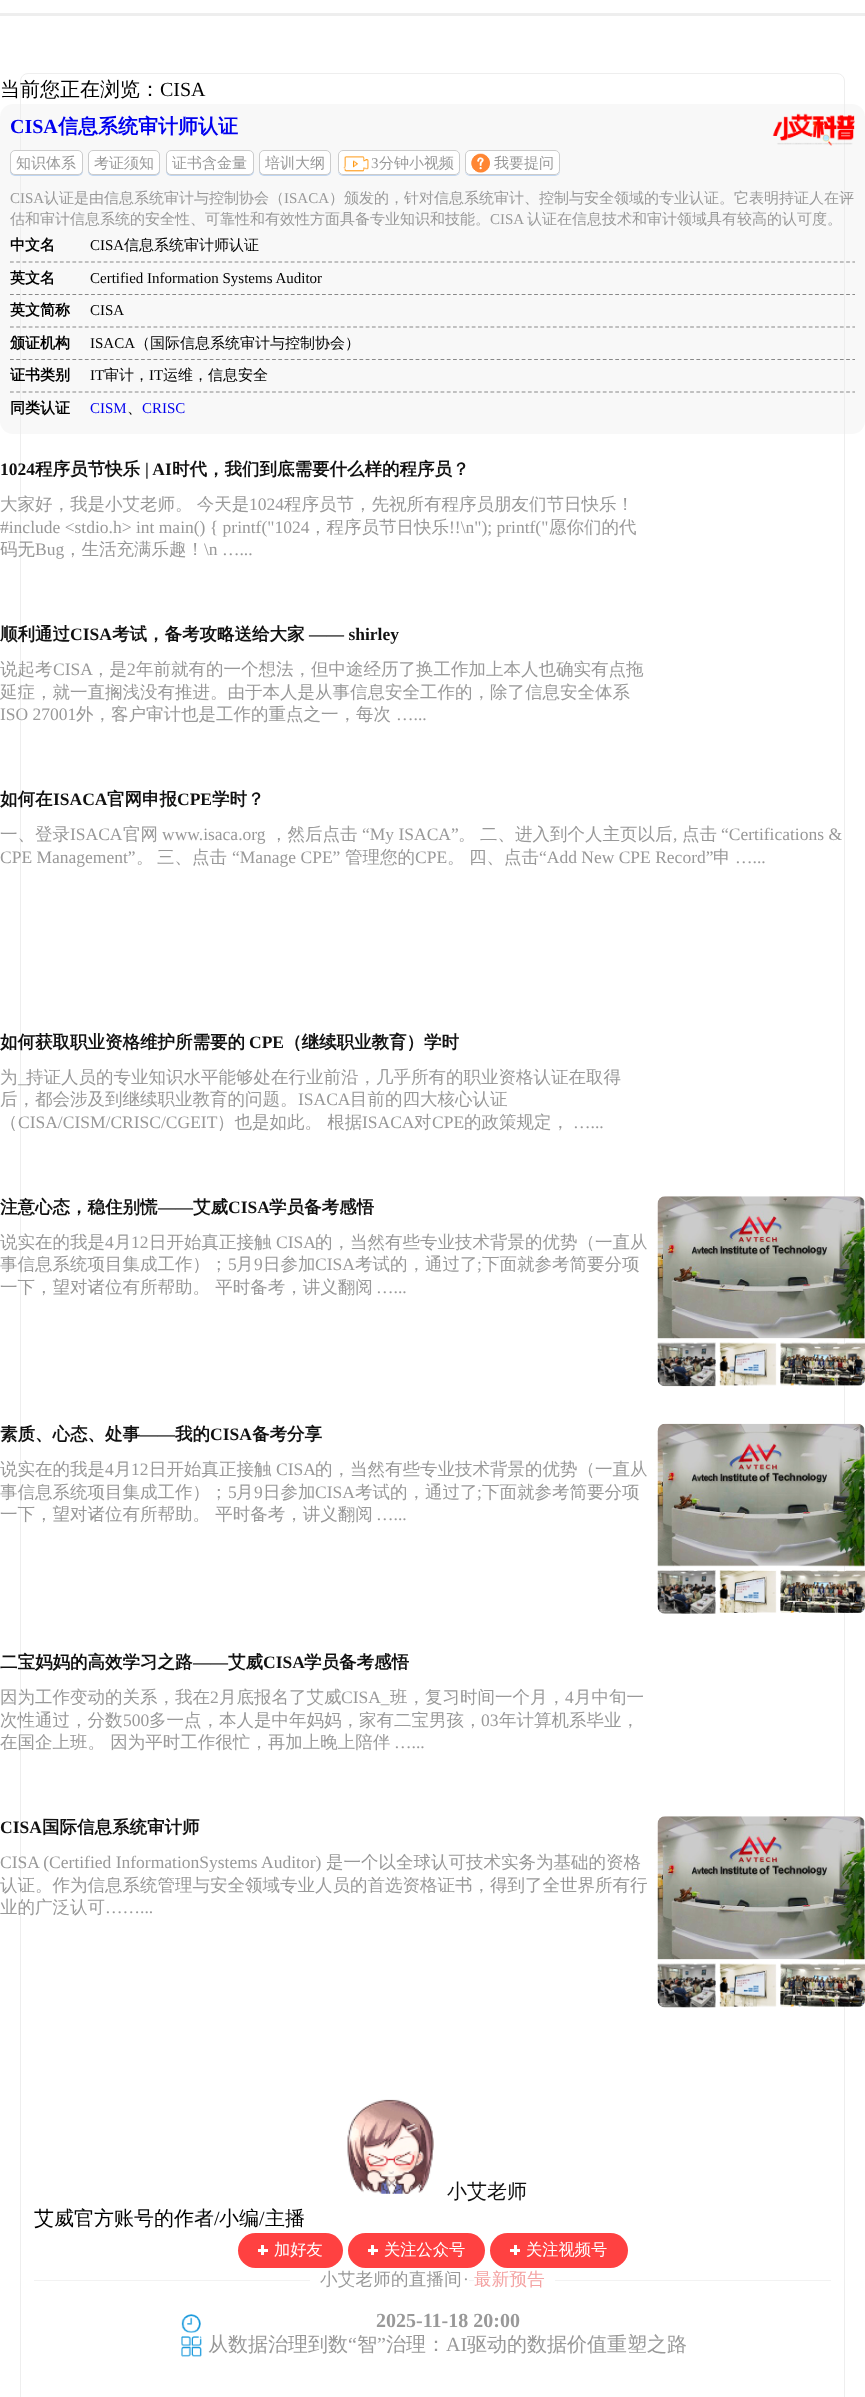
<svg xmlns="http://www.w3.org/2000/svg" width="865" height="2397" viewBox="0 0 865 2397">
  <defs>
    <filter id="blur1" x="-50%" y="-200%" width="200%" height="500%"><feGaussianBlur stdDeviation="0.5"/></filter>
  </defs>
  <rect width="100%" height="100%" fill="#ffffff"/>
  <rect x="0" y="13" width="865" height="3" fill="#eeeeee"/>
  <rect x="34" y="2280" width="797" height="1" fill="#f2f2f2"/>
  <rect x="20.5" y="73.5" width="824" height="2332" rx="7.5" fill="none" stroke="#eeeeee"/>
  <text x="0" y="96" font-family="WenQuanYi Zen Hei" font-size="20" font-weight="500" fill="#000000">当前您正在浏览：</text>
  <text x="160" y="96" font-family="Liberation Serif" font-size="20" fill="#000000">CISA</text>
  <rect x="0" y="104" width="865" height="330" rx="13" fill="#eeeeee" fill-opacity="0.39"/>
  <image x="772" y="113" width="83" height="33" href="img1.png"/>
  <text x="10" y="133" font-family="Liberation Serif" font-size="20" font-weight="bold" fill="#0000ee">CISA</text>
  <text x="58" y="133" font-family="WenQuanYi Zen Hei" font-size="20" font-weight="bold" fill="#0000ee">信息系统审计师认证</text>
  <rect x="10" y="151" width="73" height="25" rx="5" fill="#bfd6f2" filter="url(#blur1)"/>
  <rect x="10.5" y="150.5" width="72" height="24" rx="4.5" fill="#ffffff" stroke="#cccccc"/>
  <text x="16" y="168" font-family="WenQuanYi Zen Hei" font-size="15" font-weight="500" fill="#999999">知识体系</text>
  <rect x="88" y="151" width="72" height="25" rx="5" fill="#bfd6f2" filter="url(#blur1)"/>
  <rect x="88.5" y="150.5" width="71" height="24" rx="4.5" fill="#ffffff" stroke="#cccccc"/>
  <text x="94" y="168" font-family="WenQuanYi Zen Hei" font-size="15" font-weight="500" fill="#999999">考证须知</text>
  <rect x="166" y="151" width="88" height="25" rx="5" fill="#bfd6f2" filter="url(#blur1)"/>
  <rect x="166.5" y="150.5" width="87" height="24" rx="4.5" fill="#ffffff" stroke="#cccccc"/>
  <text x="172" y="168" font-family="WenQuanYi Zen Hei" font-size="15" font-weight="500" fill="#999999">证书含金量</text>
  <rect x="259" y="151" width="72" height="25" rx="5" fill="#bfd6f2" filter="url(#blur1)"/>
  <rect x="259.5" y="150.5" width="71" height="24" rx="4.5" fill="#ffffff" stroke="#cccccc"/>
  <text x="265" y="168" font-family="WenQuanYi Zen Hei" font-size="15" font-weight="500" fill="#999999">培训大纲</text>
  <rect x="338" y="151" width="122" height="25" rx="5" fill="#bfd6f2" filter="url(#blur1)"/>
  <rect x="338" y="150" width="122" height="25" rx="5" fill="#ffffff"/>
  <image x="343" y="156" width="26" height="16" href="img2.png"/>
  <rect x="338.5" y="150.5" width="121" height="24" rx="4.5" fill="none" stroke="#cccccc"/>
  <text x="371" y="168" font-family="Liberation Serif" font-size="15" fill="#999999">3</text>
  <text x="379" y="168" font-family="WenQuanYi Zen Hei" font-size="15" font-weight="500" fill="#999999">分钟小视频</text>
  <rect x="465" y="151" width="95" height="25" rx="5" fill="#bfd6f2" filter="url(#blur1)"/>
  <rect x="465" y="150" width="95" height="25" rx="5" fill="#ffffff"/>
  <image x="471" y="153" width="19" height="20" href="img3.png"/>
  <rect x="465.5" y="150.5" width="94" height="24" rx="4.5" fill="none" stroke="#cccccc"/>
  <text x="494" y="168" font-family="WenQuanYi Zen Hei" font-size="15" font-weight="500" fill="#999999">我要提问</text>
  <text x="10" y="203" font-family="Liberation Serif" font-size="15" fill="#999999">CISA</text>
  <text x="44" y="203" font-family="WenQuanYi Zen Hei" font-size="15" font-weight="500" fill="#999999">认证是由信息系统审计与控制协会（</text>
  <text x="284" y="203" font-family="Liberation Serif" font-size="15" fill="#999999">ISACA</text>
  <text x="329" y="203" font-family="WenQuanYi Zen Hei" font-size="15" font-weight="500" fill="#999999">）颁发的，针对信息系统审计、控制与安全领域的专业认证。它表明持证人在评</text>
  <text x="10" y="224" font-family="WenQuanYi Zen Hei" font-size="15" font-weight="500" fill="#999999">估和审计信息系统的安全性、可靠性和有效性方面具备专业知识和技能。</text>
  <text x="490" y="224" font-family="Liberation Serif" font-size="15" fill="#999999">CISA</text>
  <text x="527" y="224" font-family="WenQuanYi Zen Hei" font-size="15" font-weight="500" fill="#999999">认证在信息技术和审计领域具有较高的认可度。</text>
  <text x="10" y="250" font-family="WenQuanYi Zen Hei" font-size="15" font-weight="bold" fill="#000000">中文名</text>
  <text x="90" y="250" font-family="Liberation Serif" font-size="15" fill="#000000">CISA</text>
  <text x="124" y="250" font-family="WenQuanYi Zen Hei" font-size="15" font-weight="500" fill="#000000">信息系统审计师认证</text>
  <path d="M10 262H855" fill="none" stroke="#888888" stroke-width="1.2" stroke-dasharray="3.75 2.49"/>
  <text x="10" y="283" font-family="WenQuanYi Zen Hei" font-size="15" font-weight="bold" fill="#000000">英文名</text>
  <text x="90" y="283" font-family="Liberation Serif" font-size="15" fill="#000000">Certified Information Systems Auditor</text>
  <path d="M10 294.5H855" fill="none" stroke="#888888" stroke-width="1.2" stroke-dasharray="3.75 2.49"/>
  <text x="10" y="315" font-family="WenQuanYi Zen Hei" font-size="15" font-weight="bold" fill="#000000">英文简称</text>
  <text x="90" y="315" font-family="Liberation Serif" font-size="15" fill="#000000">CISA</text>
  <path d="M10 327H855" fill="none" stroke="#888888" stroke-width="1.2" stroke-dasharray="3.75 2.49"/>
  <text x="10" y="348" font-family="WenQuanYi Zen Hei" font-size="15" font-weight="bold" fill="#000000">颁证机构</text>
  <text x="90" y="348" font-family="Liberation Serif" font-size="15" fill="#000000">ISACA</text>
  <text x="135" y="348" font-family="WenQuanYi Zen Hei" font-size="15" font-weight="500" fill="#000000">（国际信息系统审计与控制协会）</text>
  <path d="M10 359.5H855" fill="none" stroke="#888888" stroke-width="1.2" stroke-dasharray="3.75 2.49"/>
  <text x="10" y="380" font-family="WenQuanYi Zen Hei" font-size="15" font-weight="bold" fill="#000000">证书类别</text>
  <text x="90" y="380" font-family="Liberation Serif" font-size="15" fill="#000000">IT</text>
  <text x="104" y="380" font-family="WenQuanYi Zen Hei" font-size="15" font-weight="500" fill="#000000">审计，</text>
  <text x="149" y="380" font-family="Liberation Serif" font-size="15" fill="#000000">IT</text>
  <text x="163" y="380" font-family="WenQuanYi Zen Hei" font-size="15" font-weight="500" fill="#000000">运维，信息安全</text>
  <path d="M10 392H855" fill="none" stroke="#888888" stroke-width="1.2" stroke-dasharray="3.75 2.49"/>
  <text x="10" y="413" font-family="WenQuanYi Zen Hei" font-size="15" font-weight="bold" fill="#000000">同类认证</text>
  <text x="90" y="413" font-family="Liberation Serif" font-size="15" fill="#0000ee">CISM</text>
  <text x="127" y="413" font-family="WenQuanYi Zen Hei" font-size="15" font-weight="500" fill="#000000">、</text>
  <text x="142" y="413" font-family="Liberation Serif" font-size="15" fill="#0000ee">CRISC</text>
  <text x="0" y="475" font-family="Liberation Serif" font-size="17.5" font-weight="bold" fill="#111111">1024</text>
  <text x="35" y="475" font-family="WenQuanYi Zen Hei" font-size="17.5" font-weight="bold" fill="#111111">程序员节快乐</text>
  <text x="145" y="475" font-family="Liberation Serif" font-size="17.5" font-weight="bold" fill="#111111">| AI</text>
  <text x="172" y="475" font-family="WenQuanYi Zen Hei" font-size="17.5" font-weight="bold" fill="#111111">时代，我们到底需要什么样的程序员？</text>
  <text x="0" y="510" word-spacing="-1" font-family="WenQuanYi Zen Hei" font-size="17.5" font-weight="500" fill="#999999">大家好，我是小艾老师。 今天是</text>
  <text x="249" y="510" font-family="Liberation Serif" font-size="17.5" fill="#999999">1024</text>
  <text x="284" y="510" font-family="WenQuanYi Zen Hei" font-size="17.5" font-weight="500" fill="#999999">程序员节，先祝所有程序员朋友们节日快乐！</text>
  <text x="0" y="533" font-family="Liberation Serif" font-size="17.5" fill="#999999">#include &lt;stdio.h&gt; int main() { printf("1024</text>
  <text x="309" y="533" font-family="WenQuanYi Zen Hei" font-size="17.5" font-weight="500" fill="#999999">，程序员节日快乐</text>
  <text x="449" y="533" font-family="Liberation Serif" font-size="17.5" fill="#999999">!!\n"); printf("</text>
  <text x="549" y="533" font-family="WenQuanYi Zen Hei" font-size="17.5" font-weight="500" fill="#999999">愿你们的代</text>
  <text x="0" y="555" font-family="WenQuanYi Zen Hei" font-size="17.5" font-weight="500" fill="#999999">码无</text>
  <text x="35" y="555" font-family="Liberation Serif" font-size="17.5" fill="#999999">Bug</text>
  <text x="64" y="555" font-family="WenQuanYi Zen Hei" font-size="17.5" font-weight="500" fill="#999999">，生活充满乐趣！</text>
  <text x="204" y="555" font-family="Liberation Serif" font-size="17.5" fill="#999999">\n …...</text>
  <text x="0" y="640" font-family="WenQuanYi Zen Hei" font-size="17.5" font-weight="bold" fill="#111111">顺利通过</text>
  <text x="70" y="640" font-family="Liberation Serif" font-size="17.5" font-weight="bold" fill="#111111">CISA</text>
  <text x="112" y="640" font-family="WenQuanYi Zen Hei" font-size="17.5" font-weight="bold" fill="#111111">考试，备考攻略送给大家</text>
  <text x="309" y="640" font-family="Liberation Serif" font-size="17.5" font-weight="bold" fill="#111111">—— shirley</text>
  <text x="0" y="675" font-family="WenQuanYi Zen Hei" font-size="17.5" font-weight="500" fill="#999999">说起考</text>
  <text x="53" y="675" font-family="Liberation Serif" font-size="17.5" fill="#999999">CISA</text>
  <text x="92" y="675" font-family="WenQuanYi Zen Hei" font-size="17.5" font-weight="500" fill="#999999">，是</text>
  <text x="127" y="675" font-family="Liberation Serif" font-size="17.5" fill="#999999">2</text>
  <text x="136" y="675" font-family="WenQuanYi Zen Hei" font-size="17.5" font-weight="500" fill="#999999">年前就有的一个想法，但中途经历了换工作加上本人也确实有点拖</text>
  <text x="0" y="698" font-family="WenQuanYi Zen Hei" font-size="17.5" font-weight="500" fill="#999999">延症，就一直搁浅没有推进。由于本人是从事信息安全工作的，除了信息安全体系</text>
  <text x="0" y="720" font-family="Liberation Serif" font-size="17.5" fill="#999999">ISO 27001</text>
  <text x="76" y="720" font-family="WenQuanYi Zen Hei" font-size="17.5" font-weight="500" fill="#999999">外，客户审计也是工作的重点之一，每次</text>
  <text x="396" y="720" font-family="Liberation Serif" font-size="17.5" fill="#999999">…...</text>
  <text x="0" y="805" font-family="WenQuanYi Zen Hei" font-size="17.5" font-weight="bold" fill="#111111">如何在</text>
  <text x="53" y="805" font-family="Liberation Serif" font-size="17.5" font-weight="bold" fill="#111111">ISACA</text>
  <text x="107" y="805" font-family="WenQuanYi Zen Hei" font-size="17.5" font-weight="bold" fill="#111111">官网申报</text>
  <text x="177" y="805" font-family="Liberation Serif" font-size="17.5" font-weight="bold" fill="#111111">CPE</text>
  <text x="212" y="805" font-family="WenQuanYi Zen Hei" font-size="17.5" font-weight="bold" fill="#111111">学时？</text>
  <text x="0" y="840" font-family="WenQuanYi Zen Hei" font-size="17.5" font-weight="500" fill="#999999">一、登录</text>
  <text x="70" y="840" font-family="Liberation Serif" font-size="17.5" fill="#999999">ISACA</text>
  <text x="123" y="840" font-family="WenQuanYi Zen Hei" font-size="17.5" font-weight="500" fill="#999999">官网</text>
  <text x="162" y="840" font-family="Liberation Serif" font-size="17.5" fill="#999999">www.isaca.org</text>
  <text x="270" y="840" font-family="WenQuanYi Zen Hei" font-size="17.5" font-weight="500" fill="#999999">，然后点击</text>
  <text x="362" y="840" font-family="Liberation Serif" font-size="17.5" fill="#999999">“My ISACA”</text>
  <text x="458" y="840" font-family="WenQuanYi Zen Hei" font-size="17.5" font-weight="500" fill="#999999">。</text>
  <text x="480" y="840" font-family="WenQuanYi Zen Hei" font-size="17.5" font-weight="500" fill="#999999">二、进入到个人主页以后</text>
  <text x="673" y="840" font-family="Liberation Serif" font-size="17.5" fill="#999999">,</text>
  <text x="682" y="840" font-family="WenQuanYi Zen Hei" font-size="17.5" font-weight="500" fill="#999999">点击</text>
  <text x="721" y="840" font-family="Liberation Serif" font-size="17.5" fill="#999999">“Certifications &amp;</text>
  <text x="0" y="863" font-family="Liberation Serif" font-size="17.5" fill="#999999">CPE Management”</text>
  <text x="136" y="863" font-family="WenQuanYi Zen Hei" font-size="17.5" font-weight="500" fill="#999999">。</text>
  <text x="157" y="863" font-family="WenQuanYi Zen Hei" font-size="17.5" font-weight="500" fill="#999999">三、点击</text>
  <text x="232" y="863" font-family="Liberation Serif" font-size="17.5" fill="#999999">“Manage CPE”</text>
  <text x="345" y="863" font-family="WenQuanYi Zen Hei" font-size="17.5" font-weight="500" fill="#999999">管理您的</text>
  <text x="415" y="863" font-family="Liberation Serif" font-size="17.5" fill="#999999">CPE</text>
  <text x="447" y="863" font-family="WenQuanYi Zen Hei" font-size="17.5" font-weight="500" fill="#999999">。</text>
  <text x="469" y="863" font-family="WenQuanYi Zen Hei" font-size="17.5" font-weight="500" fill="#999999">四、点击</text>
  <text x="539" y="863" font-family="Liberation Serif" font-size="17.5" fill="#999999">“Add New CPE Record”</text>
  <text x="713" y="863" font-family="WenQuanYi Zen Hei" font-size="17.5" font-weight="500" fill="#999999">申</text>
  <text x="735" y="863" font-family="Liberation Serif" font-size="17.5" fill="#999999">…...</text>
  <text x="0" y="1048" font-family="WenQuanYi Zen Hei" font-size="17.5" font-weight="bold" fill="#111111">如何获取职业资格维护所需要的</text>
  <text x="249" y="1048" font-family="Liberation Serif" font-size="17.5" font-weight="bold" fill="#111111">CPE</text>
  <text x="284" y="1048" font-family="WenQuanYi Zen Hei" font-size="17.5" font-weight="bold" fill="#111111">（继续职业教育）学时</text>
  <text x="0" y="1083" font-family="WenQuanYi Zen Hei" font-size="17.5" font-weight="500" fill="#999999">为</text>
  <text x="18" y="1083" font-family="Liberation Serif" font-size="17.5" fill="#999999">_</text>
  <text x="26" y="1083" font-family="WenQuanYi Zen Hei" font-size="17.5" font-weight="500" fill="#999999">持证人员的专业知识水平能够处在行业前沿，几乎所有的职业资格认证在取得</text>
  <text x="0" y="1105" font-family="WenQuanYi Zen Hei" font-size="17.5" font-weight="500" fill="#999999">后，都会涉及到继续职业教育的问题。</text>
  <text x="298" y="1105" font-family="Liberation Serif" font-size="17.5" fill="#999999">ISACA</text>
  <text x="350" y="1105" font-family="WenQuanYi Zen Hei" font-size="17.5" font-weight="500" fill="#999999">目前的四大核心认证</text>
  <text x="0" y="1128" font-family="WenQuanYi Zen Hei" font-size="17.5" font-weight="500" fill="#999999">（</text>
  <text x="18" y="1128" font-family="Liberation Serif" font-size="17.5" fill="#999999">CISA/CISM/CRISC/CGEIT</text>
  <text x="217" y="1128" font-family="WenQuanYi Zen Hei" font-size="17.5" font-weight="500" fill="#999999">）也是如此。 根据</text>
  <text x="362" y="1128" font-family="Liberation Serif" font-size="17.5" fill="#999999">ISACA</text>
  <text x="414" y="1128" font-family="WenQuanYi Zen Hei" font-size="17.5" font-weight="500" fill="#999999">对</text>
  <text x="432" y="1128" font-family="Liberation Serif" font-size="17.5" fill="#999999">CPE</text>
  <text x="464" y="1128" font-family="WenQuanYi Zen Hei" font-size="17.5" font-weight="500" fill="#999999">的政策规定，</text>
  <text x="573" y="1128" font-family="Liberation Serif" font-size="17.5" fill="#999999">…...</text>
  <text x="0" y="1213" font-family="WenQuanYi Zen Hei" font-size="17.5" font-weight="bold" fill="#111111">注意心态，稳住别慌</text>
  <text x="158" y="1213" font-family="Liberation Serif" font-size="17.5" font-weight="bold" fill="#111111">——</text>
  <text x="193" y="1213" font-family="WenQuanYi Zen Hei" font-size="17.5" font-weight="bold" fill="#111111">艾威</text>
  <text x="228" y="1213" font-family="Liberation Serif" font-size="17.5" font-weight="bold" fill="#111111">CISA</text>
  <text x="269" y="1213" font-family="WenQuanYi Zen Hei" font-size="17.5" font-weight="bold" fill="#111111">学员备考感悟</text>
  <text x="0" y="1248" font-family="WenQuanYi Zen Hei" font-size="17.5" font-weight="500" fill="#999999">说实在的我是</text>
  <text x="105" y="1248" font-family="Liberation Serif" font-size="17.5" fill="#999999">4</text>
  <text x="114" y="1248" font-family="WenQuanYi Zen Hei" font-size="17.5" font-weight="500" fill="#999999">月</text>
  <text x="131" y="1248" font-family="Liberation Serif" font-size="17.5" fill="#999999">12</text>
  <text x="149" y="1248" font-family="WenQuanYi Zen Hei" font-size="17.5" font-weight="500" fill="#999999">日开始真正接触</text>
  <text x="276" y="1248" font-family="Liberation Serif" font-size="17.5" fill="#999999">CISA</text>
  <text x="315" y="1248" font-family="WenQuanYi Zen Hei" font-size="17.5" font-weight="500" fill="#999999">的，当然有些专业技术背景的优势（一直从</text>
  <text x="0" y="1270" font-family="WenQuanYi Zen Hei" font-size="17.5" font-weight="500" fill="#999999">事信息系统项目集成工作）；</text>
  <text x="228" y="1270" font-family="Liberation Serif" font-size="17.5" fill="#999999">5</text>
  <text x="236" y="1270" font-family="WenQuanYi Zen Hei" font-size="17.5" font-weight="500" fill="#999999">月</text>
  <text x="254" y="1270" font-family="Liberation Serif" font-size="17.5" fill="#999999">9</text>
  <text x="263" y="1270" font-family="WenQuanYi Zen Hei" font-size="17.5" font-weight="500" fill="#999999">日参加</text>
  <text x="315" y="1270" font-family="Liberation Serif" font-size="17.5" fill="#999999">CISA</text>
  <text x="355" y="1270" font-family="WenQuanYi Zen Hei" font-size="17.5" font-weight="500" fill="#999999">考试的，通过了</text>
  <text x="477" y="1270" font-family="Liberation Serif" font-size="17.5" fill="#999999">;</text>
  <text x="482" y="1270" font-family="WenQuanYi Zen Hei" font-size="17.5" font-weight="500" fill="#999999">下面就参考简要分项</text>
  <text x="0" y="1293" font-family="WenQuanYi Zen Hei" font-size="17.5" font-weight="500" fill="#999999">一下，望对诸位有所帮助。 平时备考，讲义翻阅</text>
  <text x="376" y="1293" font-family="Liberation Serif" font-size="17.5" fill="#999999">…...</text>
  <image x="657" y="1196" width="208" height="191" href="img4.png"/>
  <text x="0" y="1440" font-family="WenQuanYi Zen Hei" font-size="17.5" font-weight="bold" fill="#111111">素质、心态、处事</text>
  <text x="140" y="1440" font-family="Liberation Serif" font-size="17.5" font-weight="bold" fill="#111111">——</text>
  <text x="175" y="1440" font-family="WenQuanYi Zen Hei" font-size="17.5" font-weight="bold" fill="#111111">我的</text>
  <text x="210" y="1440" font-family="Liberation Serif" font-size="17.5" font-weight="bold" fill="#111111">CISA</text>
  <text x="252" y="1440" font-family="WenQuanYi Zen Hei" font-size="17.5" font-weight="bold" fill="#111111">备考分享</text>
  <text x="0" y="1475" font-family="WenQuanYi Zen Hei" font-size="17.5" font-weight="500" fill="#999999">说实在的我是</text>
  <text x="105" y="1475" font-family="Liberation Serif" font-size="17.5" fill="#999999">4</text>
  <text x="114" y="1475" font-family="WenQuanYi Zen Hei" font-size="17.5" font-weight="500" fill="#999999">月</text>
  <text x="131" y="1475" font-family="Liberation Serif" font-size="17.5" fill="#999999">12</text>
  <text x="149" y="1475" font-family="WenQuanYi Zen Hei" font-size="17.5" font-weight="500" fill="#999999">日开始真正接触</text>
  <text x="276" y="1475" font-family="Liberation Serif" font-size="17.5" fill="#999999">CISA</text>
  <text x="315" y="1475" font-family="WenQuanYi Zen Hei" font-size="17.5" font-weight="500" fill="#999999">的，当然有些专业技术背景的优势（一直从</text>
  <text x="0" y="1498" font-family="WenQuanYi Zen Hei" font-size="17.5" font-weight="500" fill="#999999">事信息系统项目集成工作）；</text>
  <text x="228" y="1498" font-family="Liberation Serif" font-size="17.5" fill="#999999">5</text>
  <text x="236" y="1498" font-family="WenQuanYi Zen Hei" font-size="17.5" font-weight="500" fill="#999999">月</text>
  <text x="254" y="1498" font-family="Liberation Serif" font-size="17.5" fill="#999999">9</text>
  <text x="263" y="1498" font-family="WenQuanYi Zen Hei" font-size="17.5" font-weight="500" fill="#999999">日参加</text>
  <text x="315" y="1498" font-family="Liberation Serif" font-size="17.5" fill="#999999">CISA</text>
  <text x="355" y="1498" font-family="WenQuanYi Zen Hei" font-size="17.5" font-weight="500" fill="#999999">考试的，通过了</text>
  <text x="477" y="1498" font-family="Liberation Serif" font-size="17.5" fill="#999999">;</text>
  <text x="482" y="1498" font-family="WenQuanYi Zen Hei" font-size="17.5" font-weight="500" fill="#999999">下面就参考简要分项</text>
  <text x="0" y="1520" font-family="WenQuanYi Zen Hei" font-size="17.5" font-weight="500" fill="#999999">一下，望对诸位有所帮助。 平时备考，讲义翻阅</text>
  <text x="376" y="1520" font-family="Liberation Serif" font-size="17.5" fill="#999999">…...</text>
  <image x="657" y="1423" width="208" height="191" href="img5.png"/>
  <text x="0" y="1668" font-family="WenQuanYi Zen Hei" font-size="17.5" font-weight="bold" fill="#111111">二宝妈妈的高效学习之路</text>
  <text x="193" y="1668" font-family="Liberation Serif" font-size="17.5" font-weight="bold" fill="#111111">——</text>
  <text x="228" y="1668" font-family="WenQuanYi Zen Hei" font-size="17.5" font-weight="bold" fill="#111111">艾威</text>
  <text x="263" y="1668" font-family="Liberation Serif" font-size="17.5" font-weight="bold" fill="#111111">CISA</text>
  <text x="304" y="1668" font-family="WenQuanYi Zen Hei" font-size="17.5" font-weight="bold" fill="#111111">学员备考感悟</text>
  <text x="0" y="1703" font-family="WenQuanYi Zen Hei" font-size="17.5" font-weight="500" fill="#999999">因为工作变动的关系，我在</text>
  <text x="210" y="1703" font-family="Liberation Serif" font-size="17.5" fill="#999999">2</text>
  <text x="219" y="1703" font-family="WenQuanYi Zen Hei" font-size="17.5" font-weight="500" fill="#999999">月底报名了艾威</text>
  <text x="341" y="1703" font-family="Liberation Serif" font-size="17.5" fill="#999999">CISA_</text>
  <text x="390" y="1703" font-family="WenQuanYi Zen Hei" font-size="17.5" font-weight="500" fill="#999999">班，复习时间一个月，</text>
  <text x="565" y="1703" font-family="Liberation Serif" font-size="17.5" fill="#999999">4</text>
  <text x="574" y="1703" font-family="WenQuanYi Zen Hei" font-size="17.5" font-weight="500" fill="#999999">月中旬一</text>
  <text x="0" y="1726" font-family="WenQuanYi Zen Hei" font-size="17.5" font-weight="500" fill="#999999">次性通过，分数</text>
  <text x="123" y="1726" font-family="Liberation Serif" font-size="17.5" fill="#999999">500</text>
  <text x="149" y="1726" font-family="WenQuanYi Zen Hei" font-size="17.5" font-weight="500" fill="#999999">多一点，本人是中年妈妈，家有二宝男孩，</text>
  <text x="481" y="1726" font-family="Liberation Serif" font-size="17.5" fill="#999999">03</text>
  <text x="499" y="1726" font-family="WenQuanYi Zen Hei" font-size="17.5" font-weight="500" fill="#999999">年计算机系毕业，</text>
  <text x="0" y="1748" font-family="WenQuanYi Zen Hei" font-size="17.5" font-weight="500" fill="#999999">在国企上班。 因为平时工作很忙，再加上晚上陪伴</text>
  <text x="394" y="1748" font-family="Liberation Serif" font-size="17.5" fill="#999999">…...</text>
  <text x="0" y="1833" font-family="Liberation Serif" font-size="17.5" font-weight="bold" fill="#111111">CISA</text>
  <text x="42" y="1833" font-family="WenQuanYi Zen Hei" font-size="17.5" font-weight="bold" fill="#111111">国际信息系统审计师</text>
  <text x="0" y="1868" font-family="Liberation Serif" font-size="17.5" fill="#999999">CISA (Certified InformationSystems Auditor)</text>
  <text x="326" y="1868" font-family="WenQuanYi Zen Hei" font-size="17.5" font-weight="500" fill="#999999">是一个以全球认可技术实务为基础的资格</text>
  <text x="0" y="1891" font-family="WenQuanYi Zen Hei" font-size="17.5" font-weight="500" fill="#999999">认证。作为信息系统管理与安全领域专业人员的首选资格证书，得到了全世界所有行</text>
  <text x="0" y="1913" font-family="WenQuanYi Zen Hei" font-size="17.5" font-weight="500" fill="#999999">业的广泛认可</text>
  <text x="105" y="1913" font-family="Liberation Serif" font-size="17.5" fill="#999999">……...</text>
  <image x="657" y="1816" width="208" height="192" href="img6.png"/>
  <image x="347" y="2099" width="87" height="95" href="img7.png"/>
  <text x="447" y="2198" font-family="WenQuanYi Zen Hei" font-size="20" font-weight="500" fill="#111111">小艾老师</text>
  <text x="34" y="2225" font-family="WenQuanYi Zen Hei" font-size="20" font-weight="500" fill="#000000">艾威官方账号的作者</text>
  <text x="214" y="2225" font-family="Liberation Serif" font-size="20" fill="#000000">/</text>
  <text x="219" y="2225" font-family="WenQuanYi Zen Hei" font-size="20" font-weight="500" fill="#000000">小编</text>
  <text x="259" y="2225" font-family="Liberation Serif" font-size="20" fill="#000000">/</text>
  <text x="265" y="2225" font-family="WenQuanYi Zen Hei" font-size="20" font-weight="500" fill="#000000">主播</text>
  <rect x="238" y="2233" width="105" height="35" rx="17.5" fill="#ff4141"/>
  <rect x="258" y="2249" width="10" height="3" fill="#ffffff"/>
  <rect x="261" y="2245" width="3" height="10" fill="#ffffff"/>
  <text x="274" y="2255" font-family="WenQuanYi Zen Hei" font-size="16.25" font-weight="500" fill="#ffffff">加好友</text>
  <rect x="348" y="2233" width="137" height="35" rx="17.5" fill="#ff4141"/>
  <rect x="368" y="2249" width="10" height="3" fill="#ffffff"/>
  <rect x="371" y="2245" width="3" height="10" fill="#ffffff"/>
  <text x="384" y="2255" font-family="WenQuanYi Zen Hei" font-size="16.25" font-weight="500" fill="#ffffff">关注公众号</text>
  <rect x="490" y="2233" width="138" height="35" rx="17.5" fill="#ff4141"/>
  <rect x="510" y="2249" width="10" height="3" fill="#ffffff"/>
  <rect x="514" y="2245" width="3" height="10" fill="#ffffff"/>
  <text x="526" y="2255" font-family="WenQuanYi Zen Hei" font-size="16.25" font-weight="500" fill="#ffffff">关注视频号</text>
  <rect x="310" y="2280" width="159" height="1" fill="#ffffff"/>
  <text x="320" y="2285" font-family="WenQuanYi Zen Hei" font-size="17.5" font-weight="500" letter-spacing="0.25" fill="#999999">小艾老师的直播间</text>
  <text x="463" y="2285" font-family="Liberation Serif" font-size="17.5" letter-spacing="0.25" fill="#999999">·</text>
  <rect x="474" y="2280" width="81" height="1" fill="#ffffff"/>
  <text x="474" y="2285" font-family="WenQuanYi Zen Hei" font-size="17.5" font-weight="500" letter-spacing="0.25" fill="#f4a3a3">最新预告</text>
  <image x="181" y="2314" width="20" height="19" href="img8.png"/>
  <text x="376" y="2327" font-family="Liberation Serif" font-size="20" font-weight="bold" fill="#999999">2025-11-18 20:00</text>
  <image x="181" y="2336" width="21" height="21" href="img9.png"/>
  <text x="208" y="2351" font-family="WenQuanYi Zen Hei" font-size="20" font-weight="500" fill="#999999">从数据治理到数</text>
  <text x="348" y="2351" font-family="Liberation Serif" font-size="20" fill="#999999">“</text>
  <text x="357" y="2351" font-family="WenQuanYi Zen Hei" font-size="20" font-weight="500" fill="#999999">智</text>
  <text x="377" y="2351" font-family="Liberation Serif" font-size="20" fill="#999999">”</text>
  <text x="386" y="2351" font-family="WenQuanYi Zen Hei" font-size="20" font-weight="500" fill="#999999">治理：</text>
  <text x="446" y="2351" font-family="Liberation Serif" font-size="20" fill="#999999">AI</text>
  <text x="467" y="2351" font-family="WenQuanYi Zen Hei" font-size="20" font-weight="500" fill="#999999">驱动的数据价值重塑之路</text>
</svg>
